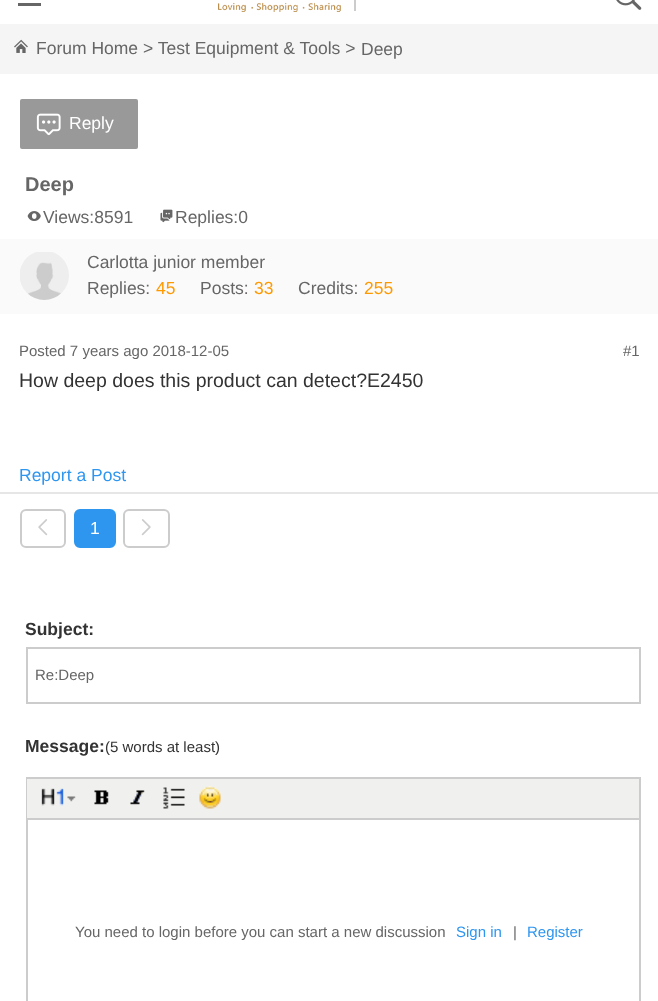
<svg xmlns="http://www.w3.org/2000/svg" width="658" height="1001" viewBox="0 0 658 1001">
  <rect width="100%" height="100%" fill="#ffffff"/>
  <rect x="18" y="3" width="23" height="3" fill="#666666"/>
  <image x="218" y="2" width="123" height="10" href="img1.png"/>
  <rect x="354" y="0" width="2" height="11" fill="#cccccc"/>
  <image x="616" y="0" width="26" height="10" href="img2.png"/>
  <rect x="0" y="24" width="658" height="50" fill="#f5f5f5"/>
  <image x="14" y="39" width="14" height="14" href="img3.png"/>
  <text x="36" y="54" font-family="Liberation Sans" font-size="17.5" fill="#666666">Forum Home &gt; Test Equipment &amp; Tools &gt;</text>
  <text x="361" y="55" font-family="Liberation Sans" font-size="17.5" fill="#666666">Deep</text>
  <rect x="20" y="99" width="118" height="50" rx="2" fill="#999999"/>
  <image x="36" y="113" width="25" height="23" href="img4.png"/>
  <text x="69" y="129" font-family="Liberation Sans" font-size="17.5" fill="#ffffff">Reply</text>
  <text x="25" y="191" font-family="Liberation Sans" font-size="20" font-weight="bold" fill="#666666">Deep</text>
  <image x="27" y="211" width="14" height="10" href="img5.png"/>
  <text x="43" y="223" font-family="Liberation Sans" font-size="17.5" fill="#666666">Views:8591</text>
  <image x="160" y="209" width="13" height="14" href="img6.png"/>
  <text x="175" y="223" font-family="Liberation Sans" font-size="17.5" fill="#666666">Replies:0</text>
  <rect x="0" y="492" width="658" height="2" fill="#e6e6e6"/>
  <rect x="0" y="239" width="658" height="75" fill="#fafafa"/>
  <image x="20" y="252" width="49" height="48" href="img7.png"/>
  <text x="87" y="268" font-family="Liberation Sans" font-size="17.5" fill="#666666">Carlotta junior member</text>
  <text x="87" y="294" font-family="Liberation Sans" font-size="17.5" fill="#666666">Replies:</text>
  <text x="156" y="294" font-family="Liberation Sans" font-size="17.5" fill="#ff9900">45</text>
  <text x="200" y="294" font-family="Liberation Sans" font-size="17.5" fill="#666666">Posts:</text>
  <text x="254" y="294" font-family="Liberation Sans" font-size="17.5" fill="#ff9900">33</text>
  <text x="298" y="294" font-family="Liberation Sans" font-size="17.5" fill="#666666">Credits:</text>
  <text x="364" y="294" font-family="Liberation Sans" font-size="17.5" fill="#ff9900">255</text>
  <text x="19" y="356" font-family="Liberation Sans" font-size="15" fill="#666666">Posted 7 years ago 2018-12-05</text>
  <text x="623" y="356" font-family="Liberation Sans" font-size="15" fill="#666666">#1</text>
  <text x="19" y="387" font-family="Liberation Sans" font-size="19.5" fill="#333333">How deep does this product can detect?E2450</text>
  <text x="19" y="481" font-family="Liberation Sans" font-size="17.5" fill="#2e96ef">Report a Post</text>
  <rect x="21" y="510" width="44" height="37" rx="5" fill="none" stroke="#cccccc" stroke-width="2"/>
  <image x="38" y="519" width="10" height="17" href="img8.png"/>
  <rect x="75" y="510" width="40" height="37" rx="5" fill="#2e96ef" stroke="#2e96ef" stroke-width="2"/>
  <text x="90" y="534" font-family="Liberation Sans" font-size="17.5" fill="#ffffff">1</text>
  <rect x="124" y="510" width="45" height="37" rx="5" fill="none" stroke="#cccccc" stroke-width="2"/>
  <image x="141" y="519" width="10" height="17" href="img9.png"/>
  <text x="25" y="635" font-family="Liberation Sans" font-size="17.5" font-weight="bold" fill="#333333">Subject:</text>
  <rect x="27" y="648" width="613" height="55" fill="none" stroke="#cccccc" stroke-width="2"/>
  <text x="35" y="680" font-family="Liberation Sans" font-size="15" fill="#666666">Re:Deep</text>
  <text x="25" y="752" font-family="Liberation Sans" font-size="17.5" font-weight="bold" fill="#333333">Message:</text>
  <text x="105" y="752" font-family="Liberation Sans" font-size="15" fill="#333333">(5 words at least)</text>
  <rect x="27" y="778" width="613" height="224" fill="none" stroke="#cccccc" stroke-width="2"/>
  <rect x="27" y="779" width="612" height="39" fill="#f0f0ee"/>
  <rect x="27" y="818" width="612" height="2" fill="#cccccc"/>
  <image x="41" y="788" width="35" height="18" href="img10.png"/>
  <image x="94" y="790" width="15" height="15" href="img11.png"/>
  <image x="130" y="790" width="15" height="15" href="img12.png"/>
  <image x="163" y="787" width="22" height="22" href="img13.png"/>
  <image x="199" y="786" width="22" height="23" href="img14.png"/>
  <text x="75" y="937" font-family="Liberation Sans" font-size="15" fill="#666666">You need to login before you can start a new discussion</text>
  <text x="456" y="937" font-family="Liberation Sans" font-size="15" fill="#2e96ef">Sign in</text>
  <text x="513" y="937" font-family="Liberation Sans" font-size="15" fill="#666666">|</text>
  <text x="527" y="937" font-family="Liberation Sans" font-size="15" fill="#2e96ef">Register</text>
</svg>
